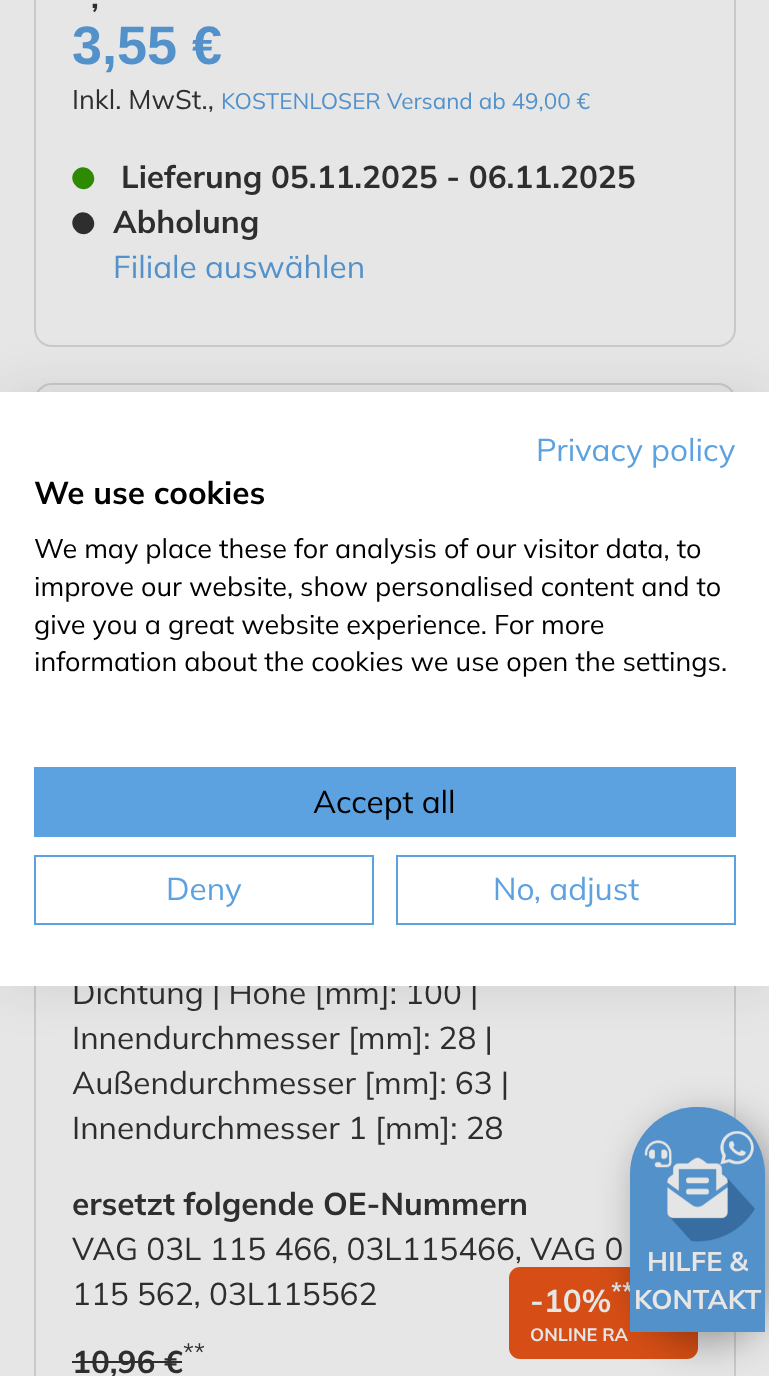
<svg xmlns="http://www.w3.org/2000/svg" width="769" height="1376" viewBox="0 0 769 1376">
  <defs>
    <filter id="blur1" x="-50%" y="-200%" width="200%" height="500%"><feGaussianBlur stdDeviation="27"/></filter>
    <filter id="blur2" x="-50%" y="-200%" width="200%" height="500%"><feGaussianBlur stdDeviation="20"/></filter>
  </defs>
  <rect width="100%" height="100%" fill="#e6e6e6"/>
  <rect x="35" y="-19" width="700" height="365" rx="17" fill="none" stroke="#c9c9c9" stroke-width="2"/>
  <text x="91" y="8" font-family="Mulish" font-size="31.5" font-weight="bold" fill="#2e2e2e">,</text>
  <text x="72" y="64" font-family="Liberation Sans" font-size="54" font-weight="bold" fill="#5391ca">3,55 €</text>
  <text x="72" y="109" font-family="Mulish" font-size="27" fill="#2e2e2e">Inkl. MwSt.,</text>
  <text x="221" y="109" font-family="Mulish" font-size="22.5" fill="#5391ca">KOSTENLOSER Versand ab 49,00 €</text>
  <path d="M75.5 170.5C85.5 160.5 101 176 91 186C81 196 65.5 180.5 75.5 170.5Z" fill="#2e8a00"/>
  <text x="121" y="188" font-family="Mulish" font-size="31.5" font-weight="bold" fill="#2e2e2e">Lieferung 05.11.2025 - 06.11.2025</text>
  <path d="M75.5 215.5C85.5 205.5 101 221 91 231C81 241 65.5 225.5 75.5 215.5Z" fill="#2e2e2e"/>
  <text x="113" y="233" font-family="Mulish" font-size="31.5" font-weight="bold" fill="#2e2e2e">Abholung</text>
  <text x="113" y="278" font-family="Mulish" font-size="31.5" fill="#5391ca">Filiale auswählen</text>
  <rect x="35" y="384" width="700" height="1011" rx="17" fill="none" stroke="#c9c9c9" stroke-width="2"/>
  <text x="72" y="1004" font-family="Mulish" font-size="31.5" fill="#2e2e2e">Dichtung | Höhe [mm]: 100 |</text>
  <text x="72" y="1049" font-family="Mulish" font-size="31.5" fill="#2e2e2e">Innendurchmesser [mm]: 28 |</text>
  <text x="72" y="1094" font-family="Mulish" font-size="31.5" fill="#2e2e2e">Außendurchmesser [mm]: 63 |</text>
  <text x="72" y="1139" font-family="Mulish" font-size="31.5" fill="#2e2e2e">Innendurchmesser 1 [mm]: 28</text>
  <text x="72" y="1215" font-family="Mulish" font-size="31.5" font-weight="bold" fill="#2e2e2e">ersetzt folgende OE-Nummern</text>
  <text x="72" y="1260" font-family="Mulish" font-size="31.5" fill="#2e2e2e">VAG 03L 115 466, 03L115466, VAG 0</text>
  <text x="72" y="1305" font-family="Mulish" font-size="31.5" fill="#2e2e2e">115 562, 03L115562</text>
  <rect x="509" y="1267" width="189" height="92" rx="11" fill="#d64e15"/>
  <text x="611" y="1300" font-family="Mulish" font-size="24" font-weight="bold" fill="#e6e6e6">**</text>
  <text x="530" y="1312" font-family="Mulish" font-size="31.5" font-weight="bold" fill="#e6e6e6">-10%</text>
  <text x="530" y="1341" font-family="Mulish" font-size="18" font-weight="bold" fill="#e6e6e6">ONLINE RA</text>
  <text x="183" y="1361" font-family="Mulish" font-size="24" fill="#2e2e2e">**</text>
  <text x="72" y="1373" font-family="Mulish" font-size="31.5" font-weight="bold" fill="#2e2e2e">10,96 €</text>
  <rect x="72" y="1361" width="110" height="2" fill="#2e2e2e"/>
  <rect x="0" y="392" width="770" height="594" fill="#000000" fill-opacity="0.1" filter="url(#blur1)"/>
  <rect x="0" y="392" width="769" height="594" fill="#ffffff"/>
  <text x="536" y="461" font-family="Mulish" font-size="31.5" fill="#5ca1e0">Privacy policy</text>
  <text x="34" y="504" font-family="Mulish" font-size="31.5" font-weight="bold" fill="#000000">We use cookies</text>
  <text x="34" y="558" font-family="Mulish" font-size="27" fill="#000000">We may place these for analysis of our visitor data, to</text>
  <text x="34" y="596" font-family="Mulish" font-size="27" fill="#000000">improve our website, show personalised content and to</text>
  <text x="34" y="634" font-family="Mulish" font-size="27" fill="#000000">give you a great website experience. For more</text>
  <text x="34" y="671" font-family="Mulish" font-size="27" fill="#000000">information about the cookies we use open the settings.</text>
  <rect x="34" y="767" width="702" height="70" fill="#5ca1e0"/>
  <text x="313" y="813" font-family="Mulish" font-size="31.5" fill="#000000">Accept all</text>
  <rect x="35" y="856" width="338" height="68" fill="none" stroke="#5ca1e0" stroke-width="2"/>
  <text x="166" y="900" font-family="Mulish" font-size="31.5" fill="#5ca1e0">Deny</text>
  <rect x="397" y="856" width="338" height="68" fill="none" stroke="#5ca1e0" stroke-width="2"/>
  <text x="493" y="900" font-family="Mulish" font-size="31.5" fill="#5ca1e0">No, adjust</text>
  <rect x="639" y="1118" width="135" height="225" rx="67.5" fill="#000000" fill-opacity="0.35" filter="url(#blur2)"/>
  <path d="M697.5 1107C735 1107 765 1137 765 1174.5V1332H630V1174.5C630 1137 660 1107 697.5 1107Z" fill="#5391ca"/>
  <image x="630" y="1107" width="135" height="135" href="img1.png"/>
  <text x="647" y="1271" font-family="Mulish" font-size="27" font-weight="bold" fill="#e6e6e6">HILFE &amp;</text>
  <text x="634" y="1309" font-family="Mulish" font-size="27" font-weight="bold" fill="#e6e6e6">KONTAKT</text>
</svg>
